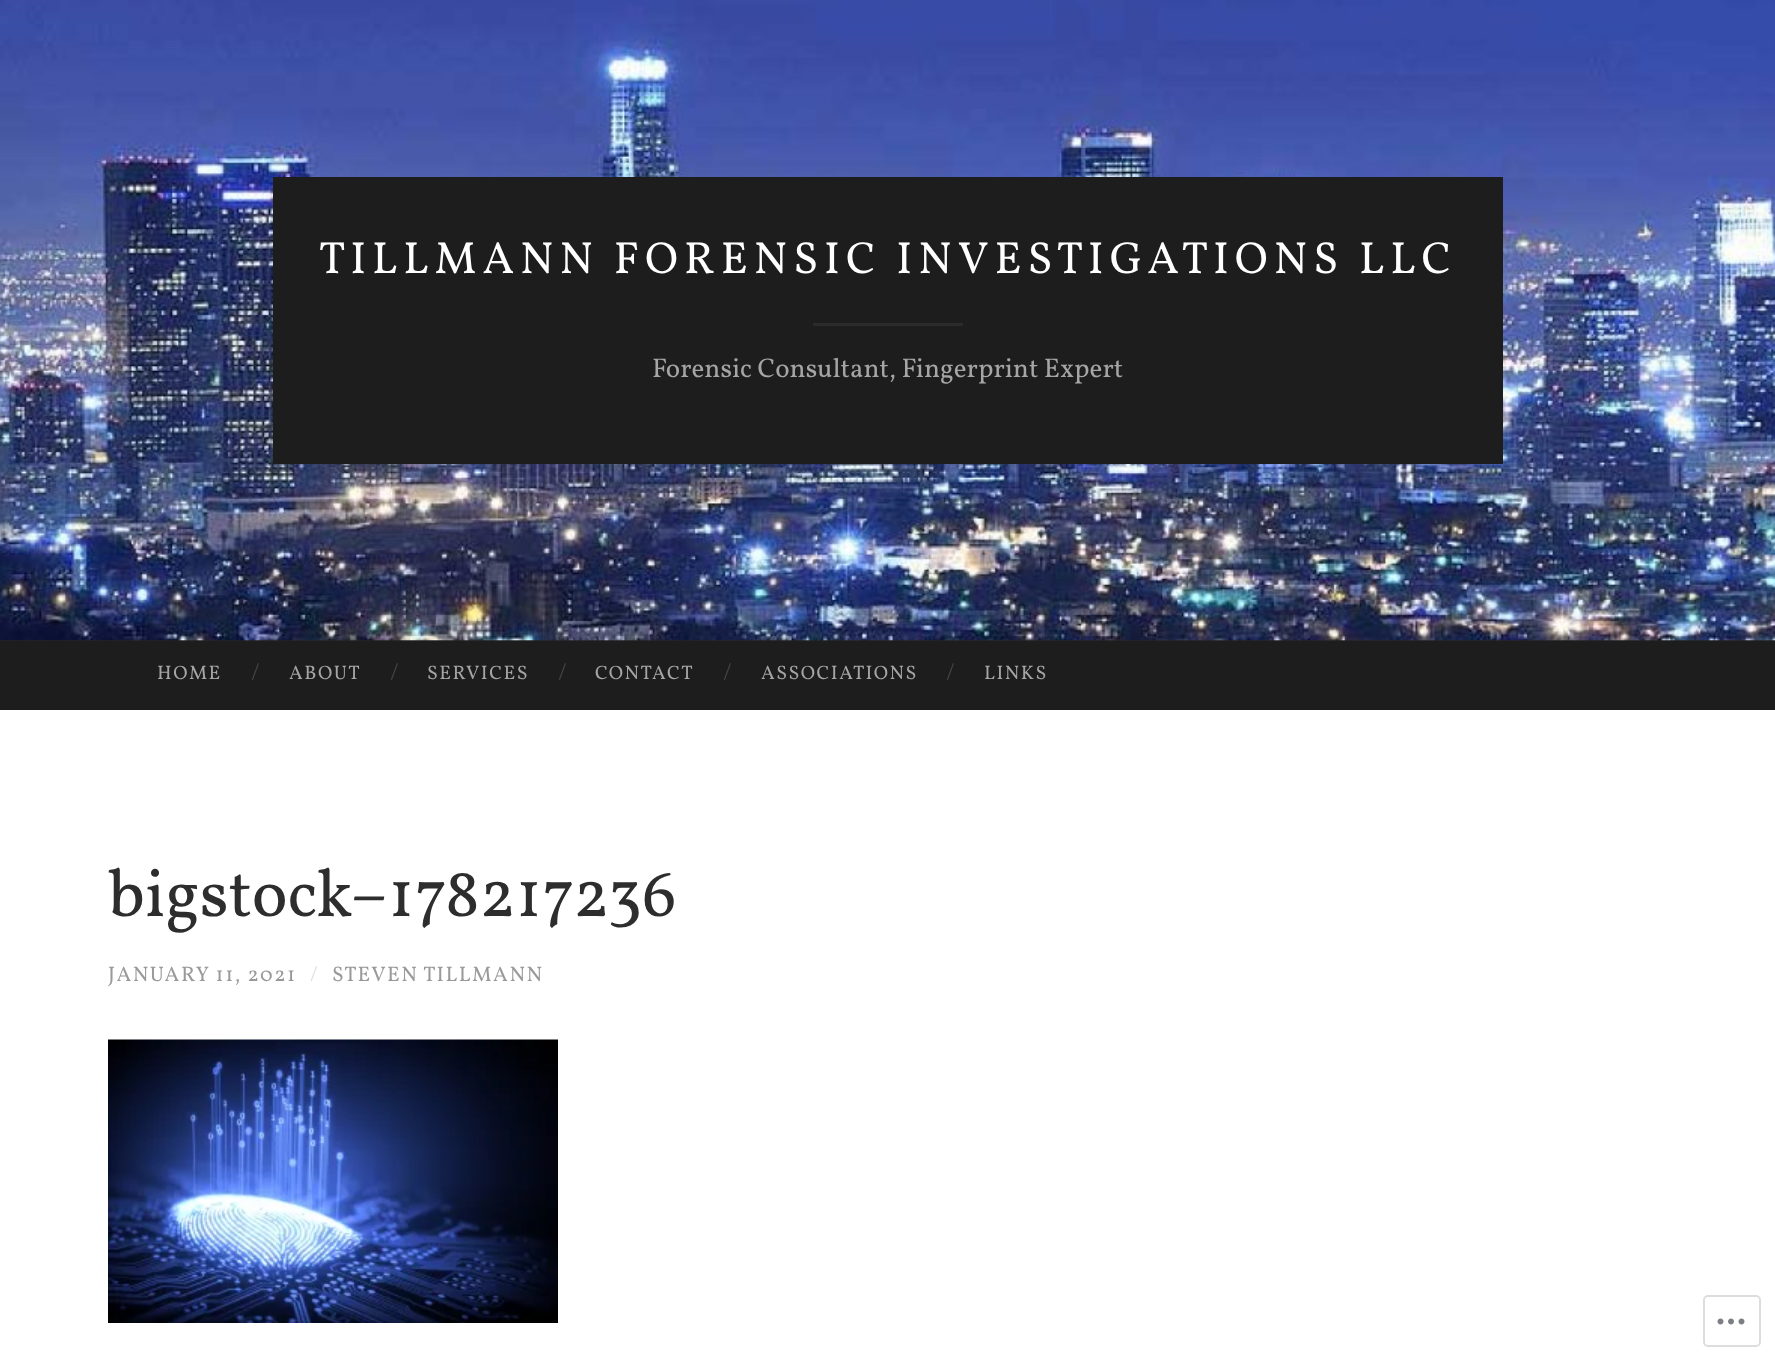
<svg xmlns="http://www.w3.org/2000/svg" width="1775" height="1361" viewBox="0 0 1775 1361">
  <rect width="100%" height="100%" fill="#ffffff"/>
  <rect x="0" y="640" width="1775" height="1" fill="#262626"/>
  <image x="0" y="0" width="1775" height="641" href="img1.png"/>
  <rect x="273" y="177" width="1230" height="287" fill="#1d1d1d"/>
  <text x="319" y="273" font-family="Vollkorn" font-size="45" letter-spacing="6" fill="#ffffff">TILLMANN FORENSIC INVESTIGATIONS LLC</text>
  <rect x="813" y="323" width="150" height="3" fill="#2b2b2b"/>
  <text x="652" y="377" font-family="Vollkorn" font-size="27" fill="#a5a5a5">Forensic Consultant, Fingerprint Expert</text>
  <rect x="0" y="641" width="1775" height="69" fill="#1d1d1d"/>
  <text x="157" y="679" font-family="Vollkorn" font-size="19.5" letter-spacing="1.5" fill="#a5a5a5">HOME</text>
  <text x="251" y="680" font-family="Vollkorn" font-size="24" fill="#444444">/</text>
  <text x="289" y="679" font-family="Vollkorn" font-size="19.5" letter-spacing="1.5" fill="#a5a5a5">ABOUT</text>
  <text x="390" y="680" font-family="Vollkorn" font-size="24" fill="#444444">/</text>
  <text x="427" y="679" font-family="Vollkorn" font-size="19.5" letter-spacing="1.5" fill="#a5a5a5">SERVICES</text>
  <text x="558" y="680" font-family="Vollkorn" font-size="24" fill="#444444">/</text>
  <text x="595" y="679" font-family="Vollkorn" font-size="19.5" letter-spacing="1.5" fill="#a5a5a5">CONTACT</text>
  <text x="723" y="680" font-family="Vollkorn" font-size="24" fill="#444444">/</text>
  <text x="761" y="679" font-family="Vollkorn" font-size="19.5" letter-spacing="1.5" fill="#a5a5a5">ASSOCIATIONS</text>
  <text x="946" y="680" font-family="Vollkorn" font-size="24" fill="#444444">/</text>
  <text x="984" y="679" font-family="Vollkorn" font-size="19.5" letter-spacing="1.5" fill="#a5a5a5">LINKS</text>
  <text x="108" y="916" font-family="Vollkorn" font-size="67.5" fill="#2d2d2d">bigstock–178217236</text>
  <text x="108" y="981" font-family="Vollkorn" font-size="21" letter-spacing="1.5" fill="#999999">JANUARY 11, 2021</text>
  <text x="310" y="981" font-family="Vollkorn" font-size="21" letter-spacing="1.5" fill="#dddddd">/</text>
  <text x="332" y="981" font-family="Vollkorn" font-size="21" letter-spacing="1.5" fill="#999999">STEVEN TILLMANN</text>
  <image x="108" y="1039" width="450" height="284" href="img2.png"/>
  <rect x="1704" y="1296" width="56" height="50" rx="4" fill="none" stroke="#dddddf" stroke-width="2"/>
  <image x="1717" y="1318" width="28" height="7" href="img3.png"/>
</svg>
